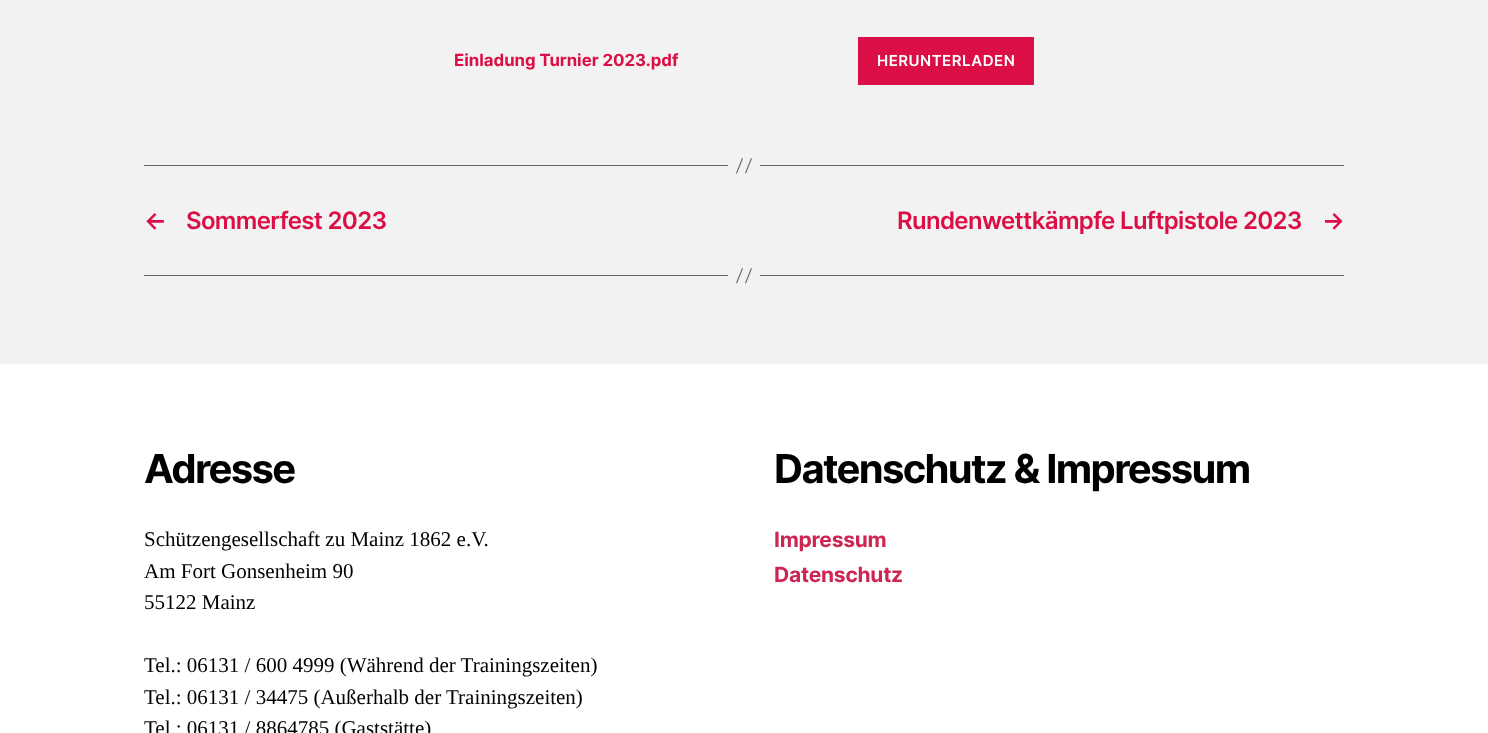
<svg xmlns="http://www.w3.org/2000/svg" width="1488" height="733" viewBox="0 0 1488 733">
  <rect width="100%" height="100%" fill="#f2f2f2"/>
  <text x="454" y="66" font-family="Inter" font-size="16.75" font-weight="bold" fill="#db0f45">Einladung Turnier 2023.pdf</text>
  <rect x="858" y="37" width="176" height="48" fill="#db0f45"/>
  <text x="877" y="66" font-family="Inter" font-size="15" font-weight="600" letter-spacing="0.5" fill="#ffffff">HERUNTERLADEN</text>
  <rect x="760" y="165" width="584" height="1" fill="#666666"/>
  <rect x="144" y="165" width="584" height="1" fill="#666666"/>
  <path d="M742 158L743 158.5L737 173.5L736 173ZM751 158L752 158.5L746 173.5L745 173Z" fill="#666666"/>
  <text x="144" y="229" font-family="Inter" font-size="24" font-weight="600" letter-spacing="-0.65" fill="#db0f45">←</text>
  <text x="186" y="229" font-family="Inter" font-size="24" font-weight="600" letter-spacing="-0.65" fill="#db0f45">Sommerfest 2023</text>
  <text x="897" y="229" font-family="Inter" font-size="24" font-weight="600" letter-spacing="-0.65" fill="#db0f45">Rundenwettkämpfe Luftpistole 2023</text>
  <text x="1322" y="229" font-family="Inter" font-size="24" font-weight="600" letter-spacing="-0.65" fill="#db0f45">→</text>
  <rect x="760" y="275" width="584" height="1" fill="#666666"/>
  <rect x="144" y="275" width="584" height="1" fill="#666666"/>
  <path d="M742 268L743 268.5L737 283.5L736 283ZM751 268L752 268.5L746 283.5L745 283Z" fill="#666666"/>
  <rect x="0" y="364" width="1488" height="369" fill="#ffffff"/>
  <text x="144" y="483" font-family="Inter" font-size="40" font-weight="bold" letter-spacing="-1.7" fill="#000000">Adresse</text>
  <text x="144" y="546" font-family="Liberation Serif" font-size="21" fill="#000000">Schützengesellschaft zu Mainz 1862 e.V.</text>
  <text x="144" y="578" font-family="Liberation Serif" font-size="21" fill="#000000">Am Fort Gonsenheim 90</text>
  <text x="144" y="609" font-family="Liberation Serif" font-size="21" fill="#000000">55122 Mainz</text>
  <text x="144" y="672" font-family="Liberation Serif" font-size="21" fill="#000000">Tel.: 06131 / 600 4999 (Während der Trainingszeiten)</text>
  <text x="144" y="704" font-family="Liberation Serif" font-size="21" fill="#000000">Tel.: 06131 / 34475 (Außerhalb der Trainingszeiten)</text>
  <text x="144" y="735" font-family="Liberation Serif" font-size="21" fill="#000000">Tel.: 06131 / 8864785 (Gaststätte)</text>
  <text x="774" y="483" font-family="Inter" font-size="40" font-weight="bold" letter-spacing="-1.7" fill="#000000">Datenschutz &amp; Impressum</text>
  <text x="774" y="547" font-family="Inter" font-size="21" font-weight="bold" letter-spacing="-0.25" fill="#cd2653">Impressum</text>
  <text x="774" y="582" font-family="Inter" font-size="21" font-weight="bold" letter-spacing="-0.25" fill="#cd2653">Datenschutz</text>
</svg>
